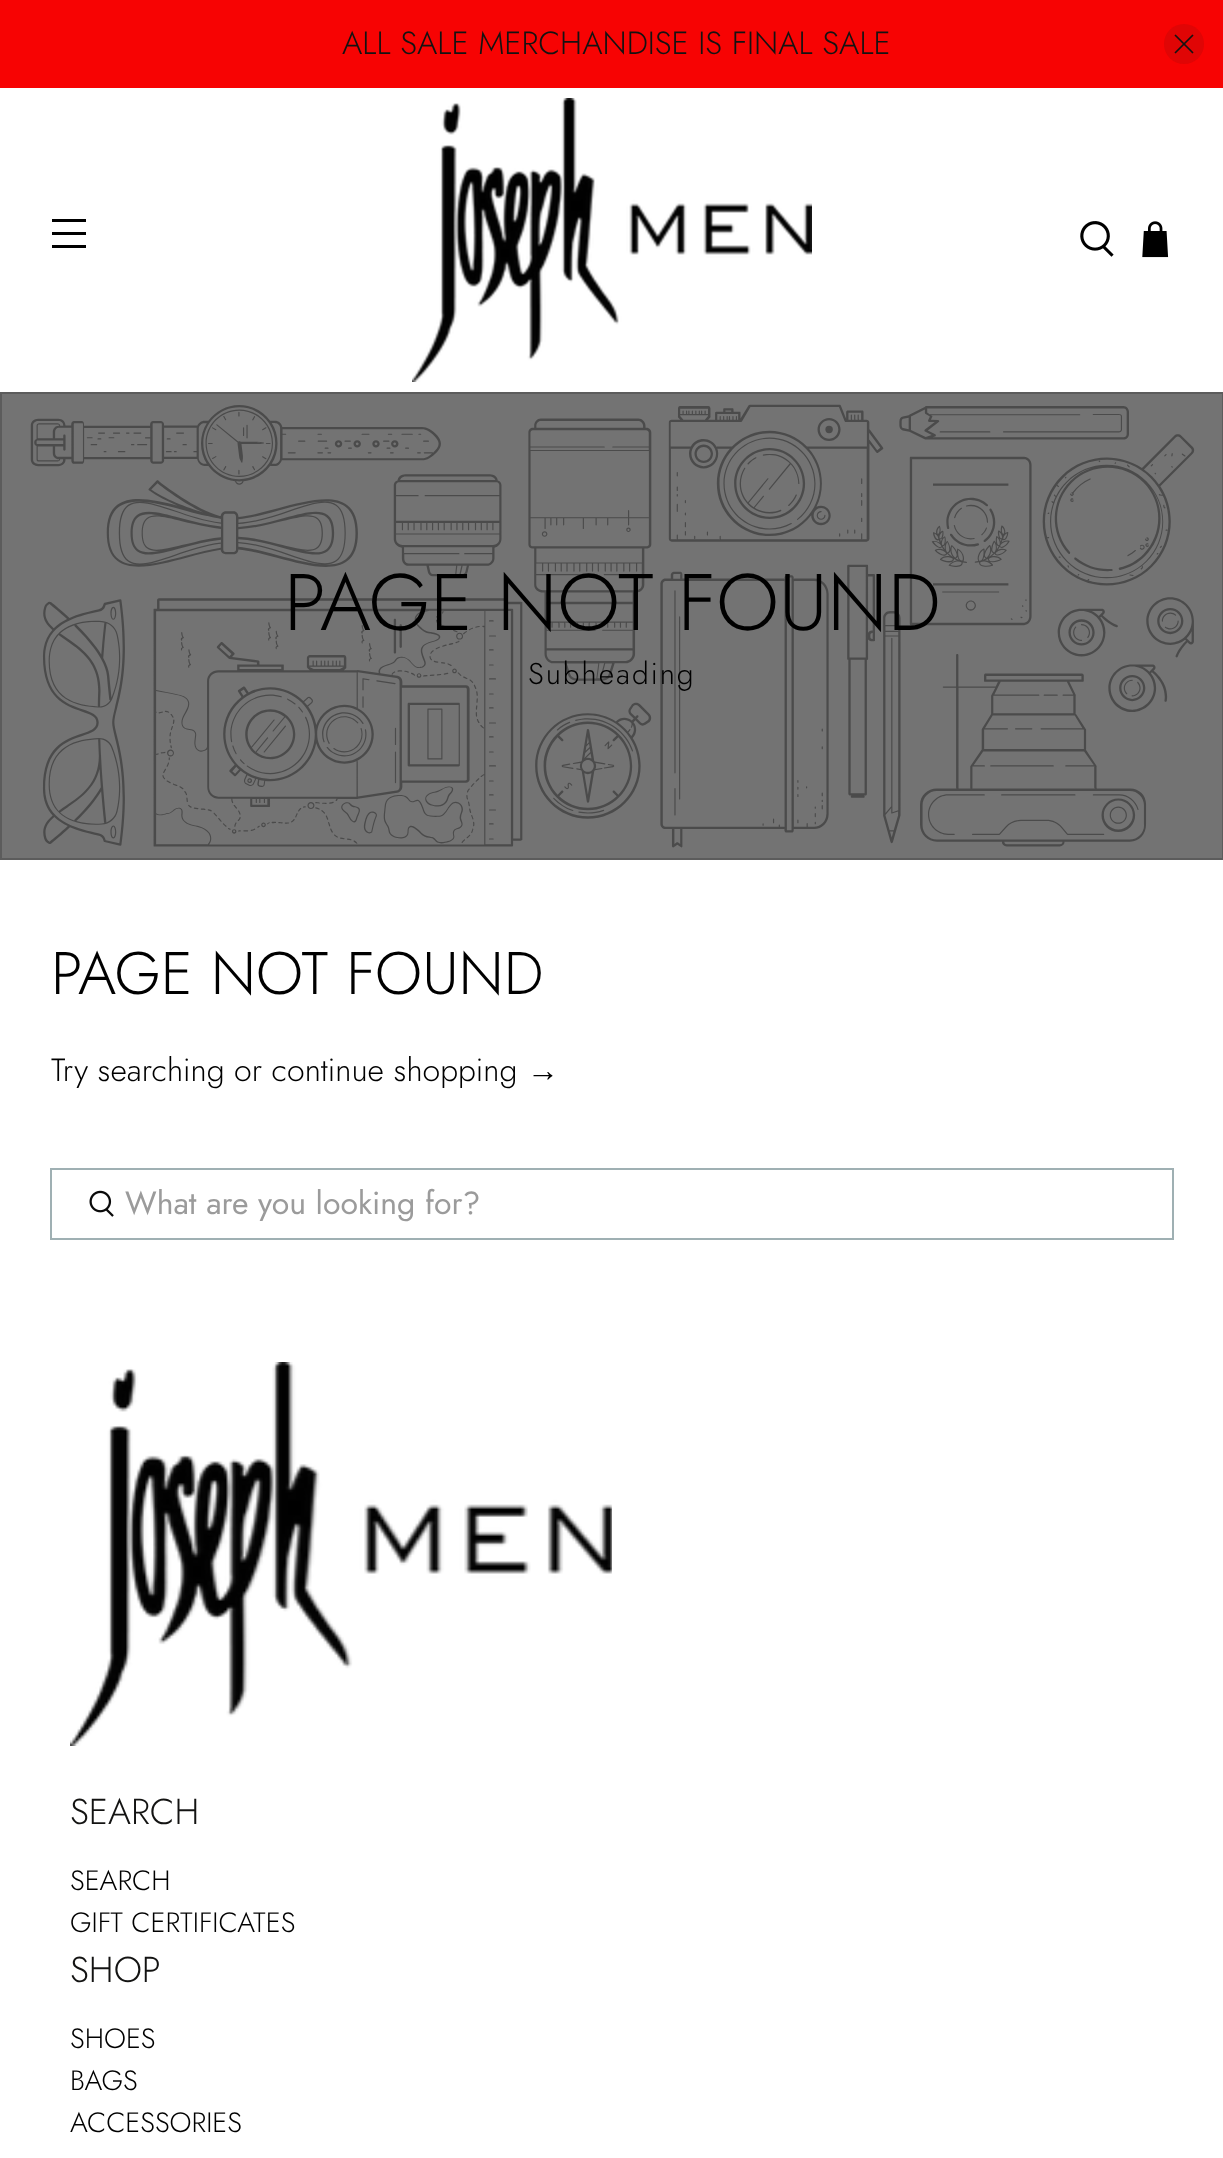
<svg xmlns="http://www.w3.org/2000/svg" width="1223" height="2158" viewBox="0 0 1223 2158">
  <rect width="100%" height="100%" fill="#ffffff"/>
  <rect x="0" y="0" width="1223" height="88" fill="#f70303"/>
  <text x="342" y="54" font-family="Jost" font-size="32" font-weight="300" fill="#131312">ALL SALE MERCHANDISE IS FINAL SALE</text>
  <circle cx="1184" cy="44" r="20" fill="#e00505"/>
  <image x="1174" y="34" width="20" height="20" href="img1.png"/>
  <rect x="52" y="219" width="34" height="3" fill="#000000"/>
  <rect x="52" y="232" width="34" height="3" fill="#000000"/>
  <rect x="52" y="245" width="34" height="3" fill="#000000"/>
  <image x="412" y="98" width="400" height="284" href="img2.png"/>
  <image x="1080" y="221" width="34" height="36" href="img3.png"/>
  <image x="1142" y="221" width="27" height="37" href="img4.png"/>
  <rect x="1" y="393" width="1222" height="466" fill="#737373" stroke="#5c5c5c" stroke-width="2"/>
  <image x="30" y="404" width="1165" height="444" href="img5.png"/>
  <text x="284" y="630" font-family="Jost" font-size="80" font-weight="300" fill="#000000">PAGE NOT FOUND</text>
  <text x="528" y="684" font-family="Jost" font-size="30" font-weight="300" letter-spacing="2" fill="#000000">Subheading</text>
  <text x="51" y="994" font-family="Jost" font-size="60" font-weight="300" fill="#000000">PAGE NOT FOUND</text>
  <text x="51" y="1081" font-family="Jost" font-size="32" font-weight="300" fill="#000000">Try searching or continue shopping</text>
  <text x="527" y="1081" font-family="Liberation Sans" font-size="32" fill="#000000">→</text>
  <rect x="51" y="1169" width="1122" height="70" fill="none" stroke="#9fb0b3" stroke-width="2"/>
  <image x="89" y="1190" width="25" height="27" href="img6.png"/>
  <text x="125" y="1214" font-family="Jost" font-size="32" fill="#9b9b9b">What are you looking for?</text>
  <image x="70" y="1362" width="542" height="384" href="img7.png"/>
  <text x="70" y="1824" font-family="Jost" font-size="36" font-weight="300" fill="#131312">SEARCH</text>
  <text x="70" y="1890" font-family="Jost" font-size="28" font-weight="300" fill="#000000">SEARCH</text>
  <text x="70" y="1932" font-family="Jost" font-size="28" font-weight="300" fill="#000000">GIFT CERTIFICATES</text>
  <text x="70" y="1982" font-family="Jost" font-size="36" font-weight="300" fill="#131312">SHOP</text>
  <text x="70" y="2048" font-family="Jost" font-size="28" font-weight="300" fill="#000000">SHOES</text>
  <text x="70" y="2090" font-family="Jost" font-size="28" font-weight="300" fill="#000000">BAGS</text>
  <text x="70" y="2132" font-family="Jost" font-size="28" font-weight="300" fill="#000000">ACCESSORIES</text>
</svg>
